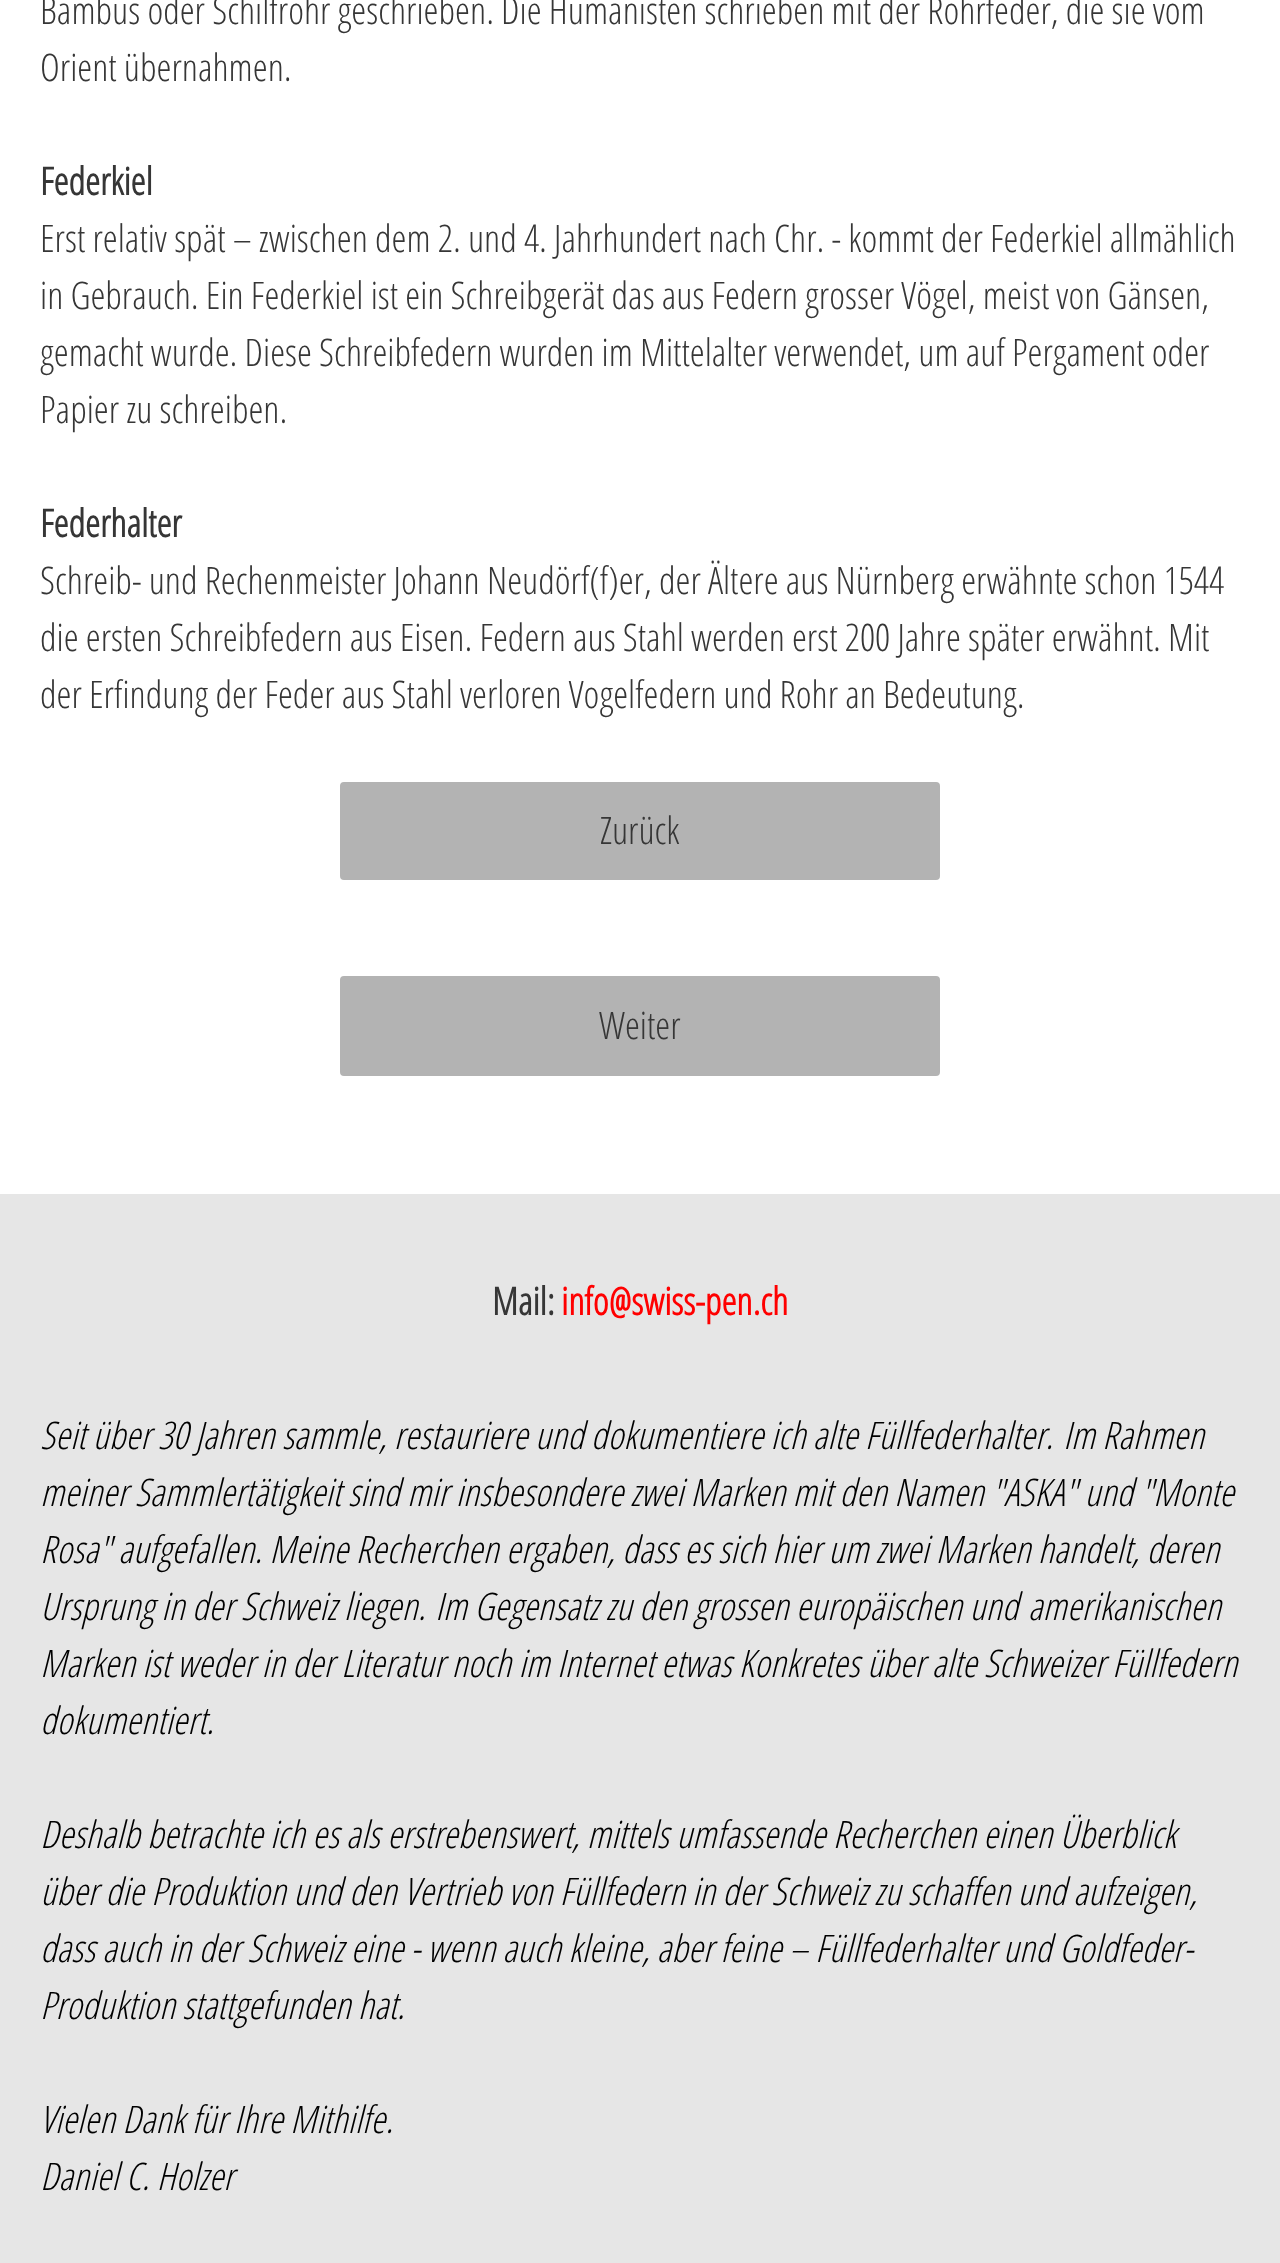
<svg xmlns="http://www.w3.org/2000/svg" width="1280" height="2263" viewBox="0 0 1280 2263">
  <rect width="100%" height="100%" fill="#ffffff"/>
  <text x="40" y="24" font-family="Open Sans Condensed" font-size="38" font-weight="300" fill="#363636">Bambus oder Schilfrohr geschrieben. Die Humanisten schrieben mit der Rohrfeder, die sie vom</text>
  <text x="40" y="81" font-family="Open Sans Condensed" font-size="38" font-weight="300" fill="#363636">Orient übernahmen.</text>
  <text x="40" y="195" font-family="Open Sans Condensed" font-size="38" font-weight="bold" fill="#363636">Federkiel</text>
  <text x="40" y="252" font-family="Open Sans Condensed" font-size="38" font-weight="300" fill="#363636">Erst relativ spät – zwischen dem 2. und 4. Jahrhundert nach Chr. - kommt der Federkiel allmählich</text>
  <text x="40" y="309" font-family="Open Sans Condensed" font-size="38" font-weight="300" fill="#363636">in Gebrauch. Ein Federkiel ist ein Schreibgerät das aus Federn grosser Vögel, meist von Gänsen,</text>
  <text x="40" y="366" font-family="Open Sans Condensed" font-size="38" font-weight="300" fill="#363636">gemacht wurde. Diese Schreibfedern wurden im Mittelalter verwendet, um auf Pergament oder</text>
  <text x="40" y="423" font-family="Open Sans Condensed" font-size="38" font-weight="300" fill="#363636">Papier zu schreiben.</text>
  <text x="40" y="537" font-family="Open Sans Condensed" font-size="38" font-weight="bold" fill="#363636">Federhalter</text>
  <text x="40" y="594" font-family="Open Sans Condensed" font-size="38" font-weight="300" fill="#363636">Schreib- und Rechenmeister Johann Neudörf(f)er, der Ältere aus Nürnberg erwähnte schon 1544</text>
  <text x="40" y="651" font-family="Open Sans Condensed" font-size="38" font-weight="300" fill="#363636">die ersten Schreibfedern aus Eisen. Federn aus Stahl werden erst 200 Jahre später erwähnt. Mit</text>
  <text x="40" y="708" font-family="Open Sans Condensed" font-size="38" font-weight="300" fill="#363636">der Erfindung der Feder aus Stahl verloren Vogelfedern und Rohr an Bedeutung.</text>
  <rect x="341" y="783" width="598" height="96" rx="3" fill="#b3b3b3" stroke="#b3b3b3" stroke-width="2"/>
  <text x="600" y="844" font-family="Open Sans Condensed" font-size="38" font-weight="300" fill="#363636">Zurück</text>
  <rect x="341" y="977" width="598" height="98" rx="3" fill="#b3b3b3" stroke="#b3b3b3" stroke-width="2"/>
  <text x="599" y="1039" font-family="Open Sans Condensed" font-size="38" font-weight="300" fill="#363636">Weiter</text>
  <rect x="0" y="1194" width="1280" height="1069" fill="#e6e6e6"/>
  <text x="492" y="1315" font-family="Open Sans Condensed" font-size="38" font-weight="bold" fill="#363636">Mail:</text>
  <text x="561" y="1315" font-family="Open Sans Condensed" font-size="38" font-weight="bold" fill="#ff0000">info@swiss-pen.ch</text>
  <text x="40" y="1449" font-family="Open Sans Condensed" font-size="38" font-weight="300" font-style="italic" fill="#000000">Seit über 30 Jahren sammle, restauriere und dokumentiere ich alte Füllfederhalter.</text>
  <text x="1063" y="1449" font-family="Open Sans Condensed" font-size="38" font-weight="300" font-style="italic" fill="#000000">Im Rahmen</text>
  <text x="40" y="1506" font-family="Open Sans Condensed" font-size="38" font-weight="300" font-style="italic" fill="#000000">meiner Sammlertätigkeit sind mir insbesondere zwei Marken mit den Namen "ASKA" und "Monte</text>
  <text x="40" y="1563" font-family="Open Sans Condensed" font-size="38" font-weight="300" font-style="italic" fill="#000000">Rosa" aufgefallen. Meine Recherchen ergaben, dass es sich hier um zwei Marken handelt, deren</text>
  <text x="40" y="1620" font-family="Open Sans Condensed" font-size="38" font-weight="300" font-style="italic" fill="#000000">Ursprung in der Schweiz liegen.</text>
  <text x="435" y="1620" font-family="Open Sans Condensed" font-size="38" font-weight="300" font-style="italic" fill="#000000">Im Gegensatz zu den grossen europäischen und</text>
  <text x="1028" y="1620" font-family="Open Sans Condensed" font-size="38" font-weight="300" font-style="italic" fill="#000000">amerikanischen</text>
  <text x="40" y="1677" font-family="Open Sans Condensed" font-size="38" font-weight="300" font-style="italic" fill="#000000">Marken ist weder in der Literatur noch im Internet etwas Konkretes über alte Schweizer Füllfedern</text>
  <text x="40" y="1734" font-family="Open Sans Condensed" font-size="38" font-weight="300" font-style="italic" fill="#000000">dokumentiert.</text>
  <text x="40" y="1848" font-family="Open Sans Condensed" font-size="38" font-weight="300" font-style="italic" fill="#000000">Deshalb betrachte ich es als erstrebenswert, mittels umfassende Recherchen einen Überblick</text>
  <text x="40" y="1905" font-family="Open Sans Condensed" font-size="38" font-weight="300" font-style="italic" fill="#000000">über die Produktion und den Vertrieb von Füllfedern in der Schweiz zu schaffen und aufzeigen,</text>
  <text x="40" y="1962" font-family="Open Sans Condensed" font-size="38" font-weight="300" font-style="italic" fill="#000000">dass auch in der Schweiz eine - wenn auch kleine, aber feine – Füllfederhalter und Goldfeder-</text>
  <text x="40" y="2019" font-family="Open Sans Condensed" font-size="38" font-weight="300" font-style="italic" fill="#000000">Produktion stattgefunden hat.</text>
  <text x="40" y="2133" font-family="Open Sans Condensed" font-size="38" font-weight="300" font-style="italic" fill="#000000">Vielen Dank für Ihre Mithilfe.</text>
  <text x="40" y="2190" font-family="Open Sans Condensed" font-size="38" font-weight="300" font-style="italic" fill="#000000">Daniel C. Holzer</text>
</svg>
